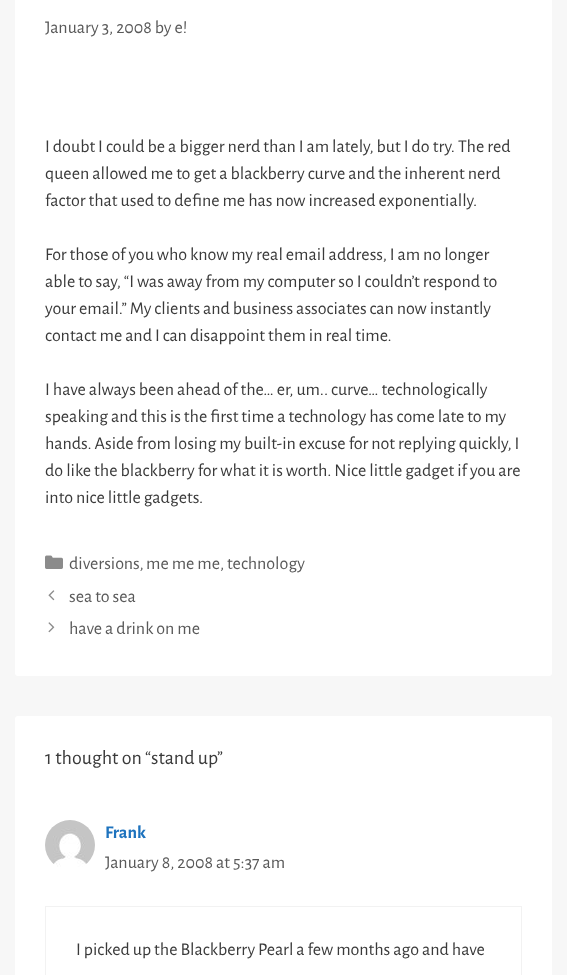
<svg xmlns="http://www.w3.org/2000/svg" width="567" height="975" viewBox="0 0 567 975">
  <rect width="100%" height="100%" fill="#f7f7f7"/>
  <rect x="15" y="-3" width="537" height="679" rx="3" fill="#ffffff"/>
  <text x="45" y="33" font-family="Alegreya Sans" font-size="18" fill="#595959">January 3, 2008 by e!</text>
  <text x="45" y="152" font-family="Alegreya Sans" font-size="18" fill="#3a3a3a">I doubt I could be a bigger nerd than I am lately, but I do try. The red</text>
  <text x="45" y="179" font-family="Alegreya Sans" font-size="18" fill="#3a3a3a">queen allowed me to get a blackberry curve and the inherent nerd</text>
  <text x="45" y="206" font-family="Alegreya Sans" font-size="18" fill="#3a3a3a">factor that used to define me has now increased exponentially.</text>
  <text x="45" y="260" font-family="Alegreya Sans" font-size="18" fill="#3a3a3a">For those of you who know my real email address, I am no longer</text>
  <text x="45" y="287" font-family="Alegreya Sans" font-size="18" fill="#3a3a3a">able to say, “I was away from my computer so I couldn’t respond to</text>
  <text x="45" y="314" font-family="Alegreya Sans" font-size="18" fill="#3a3a3a">your email.” My clients and business associates can now instantly</text>
  <text x="45" y="341" font-family="Alegreya Sans" font-size="18" fill="#3a3a3a">contact me and I can disappoint them in real time.</text>
  <text x="45" y="395" font-family="Alegreya Sans" font-size="18" fill="#3a3a3a">I have always been ahead of the… er, um.. curve… technologically</text>
  <text x="45" y="422" font-family="Alegreya Sans" font-size="18" fill="#3a3a3a">speaking and this is the first time a technology has come late to my</text>
  <text x="45" y="449" font-family="Alegreya Sans" font-size="18" fill="#3a3a3a">hands. Aside from losing my built-in excuse for not replying quickly, I</text>
  <text x="45" y="476" font-family="Alegreya Sans" font-size="18" fill="#3a3a3a">do like the blackberry for what it is worth. Nice little gadget if you are</text>
  <text x="45" y="503" font-family="Alegreya Sans" font-size="18" fill="#3a3a3a">into nice little gadgets.</text>
  <image x="45" y="555" width="18" height="14" href="img1.png"/>
  <text x="69" y="569" font-family="Alegreya Sans" font-size="18" fill="#595959">diversions,</text>
  <text x="146" y="569" font-family="Alegreya Sans" font-size="18" fill="#595959">me me me</text>
  <text x="220" y="569" font-family="Alegreya Sans" font-size="18" fill="#595959">, technology</text>
  <image x="48" y="590" width="7" height="11" href="img2.png"/>
  <text x="69" y="602" font-family="Alegreya Sans" font-size="18" fill="#595959">sea to sea</text>
  <image x="48" y="622" width="7" height="11" href="img3.png"/>
  <text x="69" y="634" font-family="Alegreya Sans" font-size="18" fill="#595959">have a drink on me</text>
  <rect x="15" y="716" width="537" height="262" rx="3" fill="#ffffff"/>
  <text x="45" y="764" font-family="Alegreya Sans" font-size="20" fill="#3a3a3a">1 thought on “stand up”</text>
  <image x="45" y="820" width="50" height="47" href="img4.png"/>
  <text x="105" y="838" font-family="Alegreya Sans" font-size="18" font-weight="bold" fill="#1e73be">Frank</text>
  <text x="105" y="868" font-family="Alegreya Sans" font-size="18" fill="#595959">January 8, 2008 at 5:37 am</text>
  <rect x="45.5" y="906.5" width="476" height="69" fill="none" stroke="#f2f2f2"/>
  <text x="76" y="955" font-family="Alegreya Sans" font-size="18" fill="#3a3a3a">I picked up the Blackberry Pearl a few months ago and have</text>
</svg>
